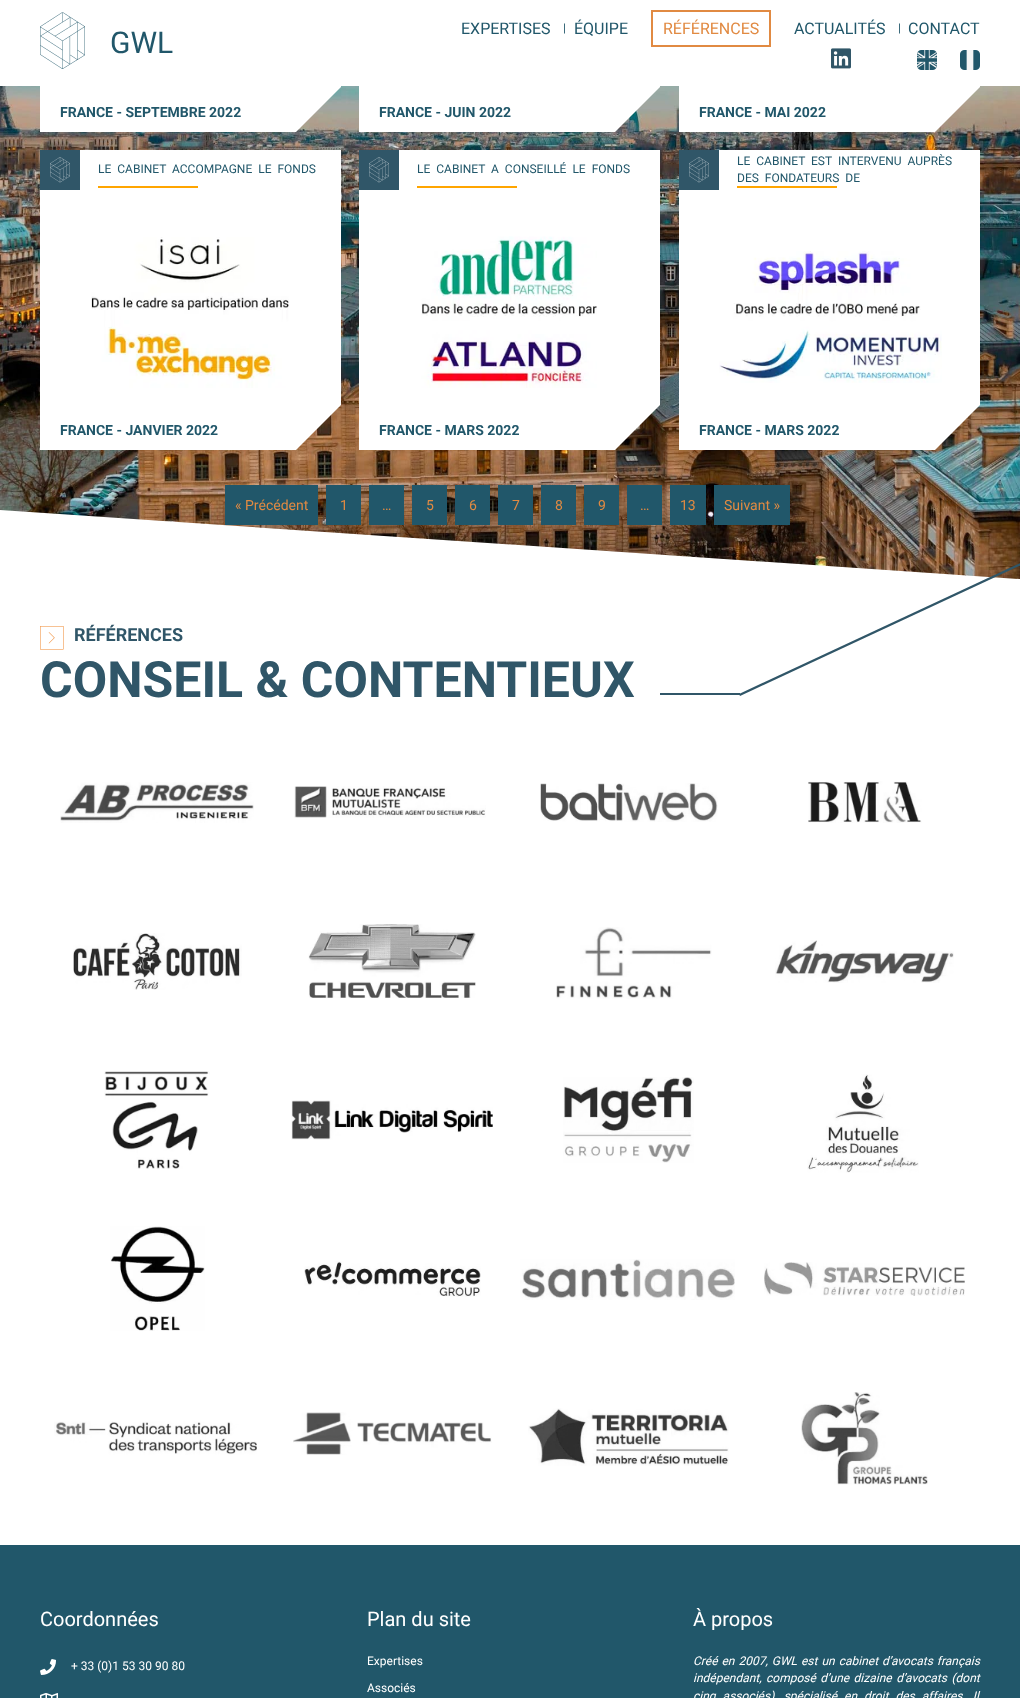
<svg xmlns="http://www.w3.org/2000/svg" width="1020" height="1698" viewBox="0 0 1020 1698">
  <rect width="100%" height="100%" fill="#ffffff"/>
  <image x="0" y="86" width="1020" height="494" href="img5.png"/>
  <path d="M359-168V132H615L660 87V-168Z" fill="#ffffff"/>
  <text x="461" y="34" font-family="Roboto" font-size="16" fill="#21576a">EXPERTISES</text>
  <text x="563" y="32" font-family="Roboto" font-size="12" fill="#21576a">|</text>
  <text x="574" y="34" font-family="Roboto" font-size="16" fill="#21576a">ÉQUIPE</text>
  <path d="M679-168V132H935L980 87V-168Z" fill="#ffffff"/>
  <rect x="652" y="11" width="118" height="35" fill="none" stroke="#e18a42" stroke-width="2"/>
  <text x="663" y="34" font-family="Roboto" font-size="16" fill="#e18a42">RÉFÉRENCES</text>
  <text x="794" y="34" font-family="Roboto" font-size="16" fill="#21576a">ACTUALITÉS</text>
  <text x="898" y="32" font-family="Roboto" font-size="12" fill="#21576a">|</text>
  <text x="908" y="34" font-family="Roboto" font-size="16" fill="#21576a">CONTACT</text>
  <image x="831" y="48" width="20" height="21" href="img1.png"/>
  <image x="917" y="50" width="20" height="20" href="img2.png"/>
  <image x="960" y="50" width="20" height="20" href="img3.png"/>
  <path d="M40-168V132H296L341 87V-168Z" fill="#ffffff"/>
  <image x="40" y="12" width="45" height="57" href="img4.png"/>
  <text x="110" y="53" font-family="Roboto" font-size="30" fill="#21576a">GWL</text>
  <text x="60" y="117" font-family="Roboto" font-size="14" font-weight="bold" fill="#21576a">FRANCE - SEPTEMBRE 2022</text>
  <text x="379" y="117" font-family="Roboto" font-size="14" font-weight="bold" fill="#21576a">FRANCE - JUIN 2022</text>
  <text x="699" y="117" font-family="Roboto" font-size="14" font-weight="bold" fill="#21576a">FRANCE - MAI 2022</text>
  <path d="M40 150V450H296L341 405V150Z" fill="#ffffff"/>
  <rect x="40" y="150" width="40" height="40" fill="#305668"/>
  <image x="50" y="157" width="20" height="26" href="img6.png"/>
  <text x="98" y="173" word-spacing="3" font-family="Roboto" font-size="12" fill="#21576a">LE CABINET ACCOMPAGNE LE FONDS</text>
  <rect x="98" y="186" width="100" height="2" fill="#ffa500"/>
  <image x="91" y="237" width="198" height="151" href="img7.png"/>
  <text x="60" y="435" font-family="Roboto" font-size="14" font-weight="bold" fill="#21576a">FRANCE - JANVIER 2022</text>
  <path d="M359 150V450H615L660 405V150Z" fill="#ffffff"/>
  <rect x="359" y="150" width="40" height="40" fill="#305668"/>
  <image x="369" y="157" width="20" height="26" href="img6.png"/>
  <text x="417" y="173" word-spacing="3" font-family="Roboto" font-size="12" fill="#21576a">LE CABINET A CONSEILLÉ LE FONDS</text>
  <rect x="417" y="186" width="100" height="2" fill="#ffa500"/>
  <image x="421" y="236" width="176" height="152" href="img8.png"/>
  <text x="379" y="435" font-family="Roboto" font-size="14" font-weight="bold" fill="#21576a">FRANCE - MARS 2022</text>
  <path d="M679 150V450H935L980 405V150Z" fill="#ffffff"/>
  <rect x="679" y="150" width="40" height="40" fill="#305668"/>
  <image x="689" y="157" width="20" height="26" href="img6.png"/>
  <text x="737" y="165" word-spacing="3" font-family="Roboto" font-size="12" fill="#21576a">LE CABINET EST INTERVENU AUPRÈS</text>
  <text x="737" y="182" word-spacing="3" font-family="Roboto" font-size="12" fill="#21576a">DES FONDATEURS DE</text>
  <rect x="737" y="186" width="100" height="2" fill="#ffa500"/>
  <image x="719" y="251" width="223" height="132" href="img9.png"/>
  <text x="699" y="435" font-family="Roboto" font-size="14" font-weight="bold" fill="#21576a">FRANCE - MARS 2022</text>
  <path d="M-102 503L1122 586H-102Z" fill="#ffffff"/>
  <rect x="225" y="485" width="93" height="40" fill="#21576a"/>
  <text x="235" y="510" font-family="Roboto" font-size="14" fill="#e18a42">« Précédent</text>
  <rect x="326" y="485" width="35" height="40" fill="#21576a"/>
  <text x="340" y="510" font-family="Roboto" font-size="14" fill="#e18a42">1</text>
  <rect x="369" y="485" width="35" height="40" fill="#21576a"/>
  <text x="382" y="510" font-family="Roboto" font-size="14" fill="#e18a42">…</text>
  <rect x="412" y="485" width="35" height="40" fill="#21576a"/>
  <text x="426" y="510" font-family="Roboto" font-size="14" fill="#e18a42">5</text>
  <rect x="455" y="485" width="35" height="40" fill="#21576a"/>
  <text x="469" y="510" font-family="Roboto" font-size="14" fill="#e18a42">6</text>
  <rect x="498" y="485" width="35" height="40" fill="#21576a"/>
  <text x="512" y="510" font-family="Roboto" font-size="14" fill="#e18a42">7</text>
  <rect x="541" y="485" width="35" height="40" fill="#21576a"/>
  <text x="555" y="510" font-family="Roboto" font-size="14" fill="#e18a42">8</text>
  <rect x="584" y="485" width="35" height="40" fill="#21576a"/>
  <text x="598" y="510" font-family="Roboto" font-size="14" fill="#e18a42">9</text>
  <rect x="627" y="485" width="35" height="40" fill="#21576a"/>
  <text x="640" y="510" font-family="Roboto" font-size="14" fill="#e18a42">…</text>
  <rect x="670" y="485" width="36" height="40" fill="#21576a"/>
  <text x="680" y="510" font-family="Roboto" font-size="14" fill="#e18a42">13</text>
  <rect x="714" y="485" width="76" height="40" fill="#21576a"/>
  <text x="724" y="510" font-family="Roboto" font-size="14" fill="#e18a42">Suivant »</text>
  <image x="40" y="626" width="24" height="24" href="img10.png"/>
  <text x="74" y="641" font-family="Roboto" font-size="18" font-weight="bold" fill="#305668">RÉFÉRENCES</text>
  <text x="40" y="697" font-family="Roboto" font-size="50" font-weight="bold" fill="#305668">CONSEIL &amp; CONTENTIEUX</text>
  <rect x="660" y="693" width="80" height="2" fill="#305668"/>
  <path d="M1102 525L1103 527L740 696L739 694Z" fill="#305668"/>
  <image x="60" y="782" width="194" height="41" href="img11.png"/>
  <image x="294" y="786" width="192" height="32" href="img12.png"/>
  <image x="540" y="783" width="178" height="39" href="img13.png"/>
  <image x="808" y="781" width="114" height="42" href="img14.png"/>
  <image x="73" y="933" width="169" height="57" href="img15.png"/>
  <image x="308" y="924" width="168" height="74" href="img16.png"/>
  <image x="556" y="927" width="156" height="72" href="img17.png"/>
  <image x="775" y="940" width="179" height="43" href="img18.png"/>
  <image x="104" y="1071" width="106" height="98" href="img19.png"/>
  <image x="291" y="1100" width="202" height="40" href="img20.png"/>
  <image x="563" y="1077" width="131" height="86" href="img21.png"/>
  <image x="807" y="1074" width="112" height="99" href="img22.png"/>
  <image x="110" y="1226" width="95" height="105" href="img23.png"/>
  <image x="304" y="1261" width="177" height="36" href="img24.png"/>
  <image x="520" y="1259" width="215" height="41" href="img25.png"/>
  <image x="764" y="1262" width="201" height="34" href="img26.png"/>
  <image x="54" y="1421" width="203" height="34" href="img27.png"/>
  <image x="293" y="1412" width="199" height="43" href="img28.png"/>
  <image x="528" y="1408" width="201" height="58" href="img29.png"/>
  <image x="801" y="1392" width="127" height="93" href="img30.png"/>
  <rect x="0" y="1545" width="1020" height="153" fill="#21576a"/>
  <text x="40" y="1626" font-family="Roboto" font-size="20" fill="#ffffff">Coordonnées</text>
  <image x="40" y="1659" width="16" height="16" href="img31.png"/>
  <text x="71" y="1670" font-family="Roboto" font-size="12" fill="#ffffff">+ 33 (0)1 53 30 90 80</text>
  <image x="40" y="1693" width="18" height="5" href="img32.png"/>
  <text x="367" y="1626" font-family="Roboto" font-size="20" fill="#ffffff">Plan du site</text>
  <text x="367" y="1665" font-family="Roboto" font-size="12" fill="#ffffff">Expertises</text>
  <text x="367" y="1692" font-family="Roboto" font-size="12" fill="#ffffff">Associés</text>
  <text x="693" y="1626" font-family="Roboto" font-size="20" fill="#ffffff">À propos</text>
  <text x="693" y="1665" word-spacing="1" font-family="Roboto" font-size="12" font-style="italic" fill="#ffffff">Créé en 2007, GWL est un cabinet d’avocats français</text>
  <text x="693" y="1682" word-spacing="1.5" font-family="Roboto" font-size="12" font-style="italic" fill="#ffffff">indépendant, composé d’une dizaine d’avocats (dont</text>
  <text x="693" y="1700" word-spacing="4" font-family="Roboto" font-size="12" font-style="italic" fill="#ffffff">cinq associés), spécialisé en droit des affaires. Il</text>
</svg>
